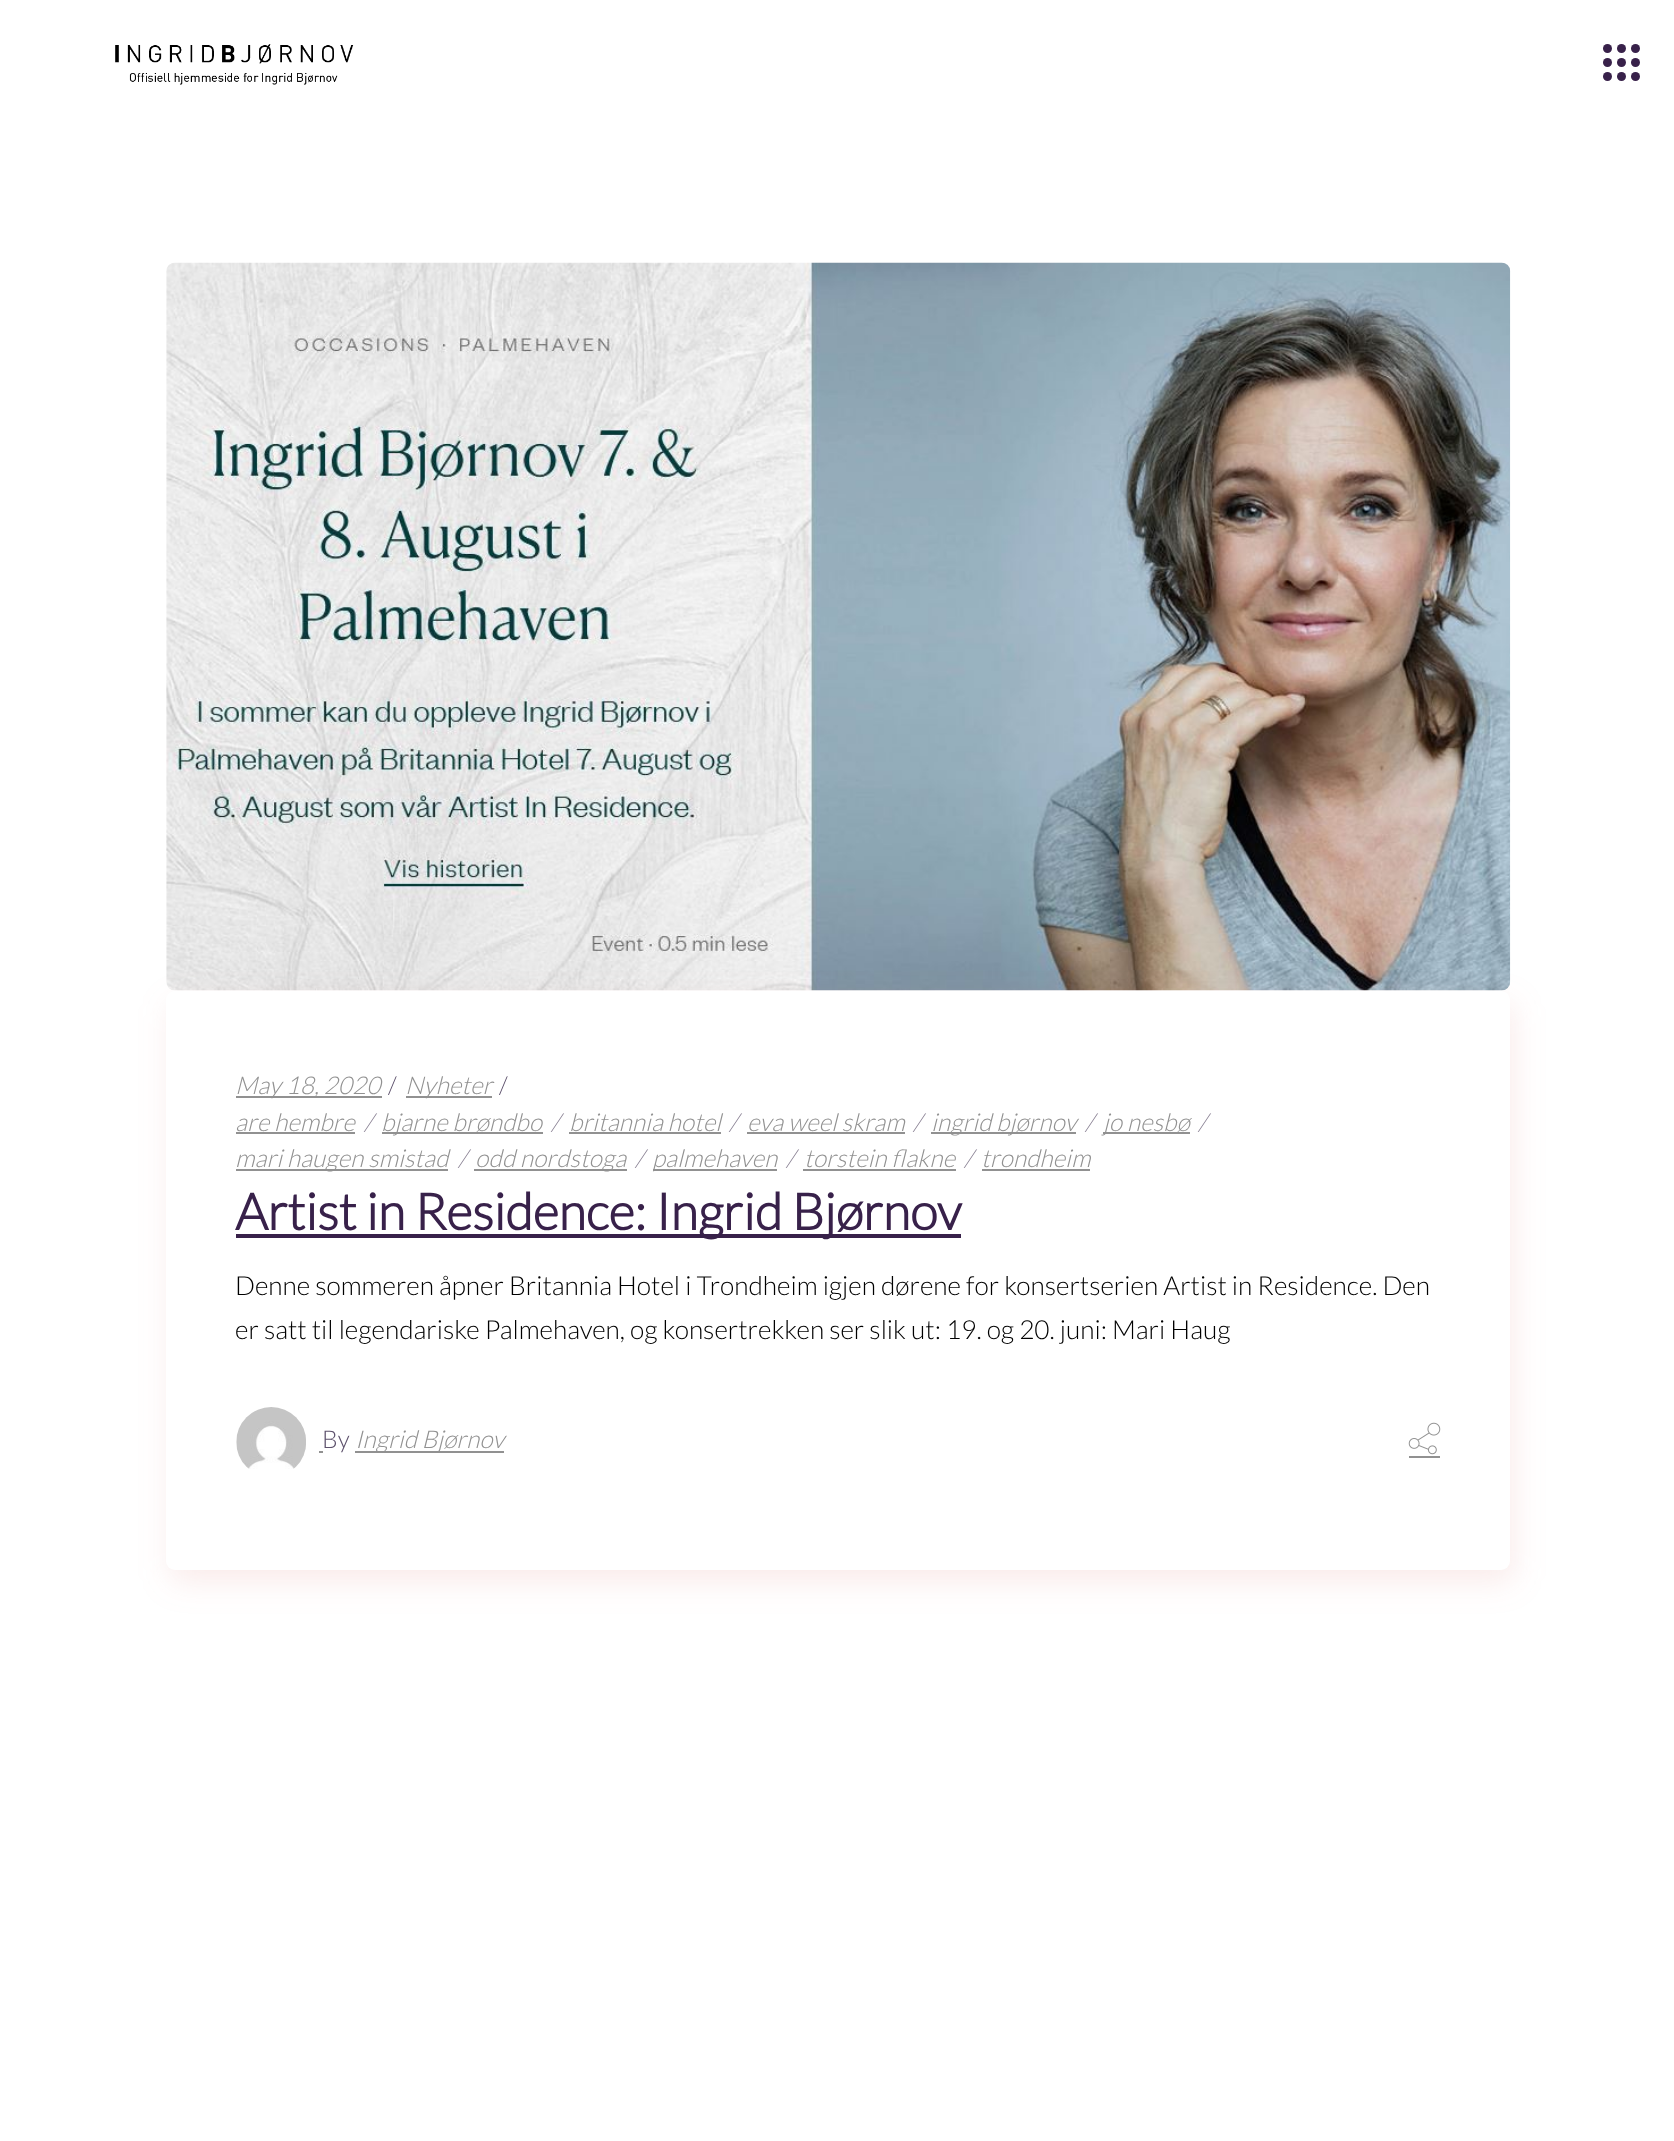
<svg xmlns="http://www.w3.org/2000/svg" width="1674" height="2141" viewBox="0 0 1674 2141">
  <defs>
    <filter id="blur1" x="-50%" y="-200%" width="200%" height="500%"><feGaussianBlur stdDeviation="15.5"/></filter>
  </defs>
  <rect width="100%" height="100%" fill="#ffffff"/>
  <image x="115" y="44" width="239" height="41" href="img1.png"/>
  <circle cx="1607.5" cy="48.5" r="4.5" fill="#38214a"/>
  <circle cx="1621.5" cy="48.5" r="4.5" fill="#38214a"/>
  <circle cx="1635.5" cy="48.5" r="4.5" fill="#38214a"/>
  <circle cx="1607.5" cy="62.5" r="4.5" fill="#38214a"/>
  <circle cx="1621.5" cy="62.5" r="4.5" fill="#38214a"/>
  <circle cx="1635.5" cy="62.5" r="4.5" fill="#38214a"/>
  <circle cx="1607.5" cy="76.5" r="4.5" fill="#38214a"/>
  <circle cx="1621.5" cy="76.5" r="4.5" fill="#38214a"/>
  <circle cx="1635.5" cy="76.5" r="4.5" fill="#38214a"/>
  <image x="166" y="262" width="1345" height="729" href="img2.png"/>
  <rect x="170" y="1003" width="1344" height="579" rx="9" fill="#e49b94" fill-opacity="0.2" filter="url(#blur1)"/>
  <rect x="166" y="991" width="1344" height="579" rx="9" fill="#ffffff"/>
  <rect x="236" y="1096" width="146" height="2" fill="#919191"/>
  <text x="235" y="1094" font-family="Lato" font-size="24.5" font-weight="300" font-style="italic" fill="#919191">May 18, 2020</text>
  <text x="388" y="1094" font-family="Lato" font-size="24.5" font-weight="300" fill="#5d516c">/</text>
  <rect x="406" y="1096" width="86" height="2" fill="#919191"/>
  <text x="405" y="1094" font-family="Lato" font-size="24.5" font-weight="300" font-style="italic" fill="#919191">Nyheter</text>
  <text x="499" y="1094" font-family="Lato" font-size="24.5" font-weight="300" fill="#5d516c">/</text>
  <text x="235" y="1131" font-family="Lato" font-size="24.5" font-weight="300" font-style="italic" fill="#919191">are hembre</text>
  <rect x="236" y="1132" width="119" height="2" fill="#919191"/>
  <text x="364" y="1131" font-family="Lato" font-size="24.5" font-weight="300" font-style="italic" fill="#8b8395">/</text>
  <rect x="382" y="1132" width="161" height="2" fill="#919191"/>
  <text x="381" y="1131" font-family="Lato" font-size="24.5" font-weight="300" font-style="italic" fill="#919191">bjarne brøndbo</text>
  <text x="551" y="1131" font-family="Lato" font-size="24.5" font-weight="300" font-style="italic" fill="#8b8395">/</text>
  <text x="569" y="1131" font-family="Lato" font-size="24.5" font-weight="300" font-style="italic" fill="#919191">britannia hotel</text>
  <rect x="569" y="1132" width="152" height="2" fill="#919191"/>
  <text x="729" y="1131" font-family="Lato" font-size="24.5" font-weight="300" font-style="italic" fill="#8b8395">/</text>
  <text x="747" y="1131" font-family="Lato" font-size="24.5" font-weight="300" font-style="italic" fill="#919191">eva weel skram</text>
  <rect x="747" y="1132" width="158" height="2" fill="#919191"/>
  <text x="913" y="1131" font-family="Lato" font-size="24.5" font-weight="300" font-style="italic" fill="#8b8395">/</text>
  <rect x="931" y="1132" width="145" height="2" fill="#919191"/>
  <text x="931" y="1131" font-family="Lato" font-size="24.5" font-weight="300" font-style="italic" fill="#919191">ingrid bjørnov</text>
  <text x="1085" y="1131" font-family="Lato" font-size="24.5" font-weight="300" font-style="italic" fill="#8b8395">/</text>
  <rect x="1103" y="1132" width="87" height="2" fill="#919191"/>
  <text x="1103" y="1131" font-family="Lato" font-size="24.5" font-weight="300" font-style="italic" fill="#919191">jo nesbø</text>
  <text x="1198" y="1131" font-family="Lato" font-size="24.5" font-weight="300" font-style="italic" fill="#8b8395">/</text>
  <rect x="236" y="1169" width="212" height="2" fill="#919191"/>
  <text x="235" y="1167" font-family="Lato" font-size="24.5" font-weight="300" font-style="italic" fill="#919191">mari haugen smistad</text>
  <text x="458" y="1167" font-family="Lato" font-size="24.5" font-weight="300" font-style="italic" fill="#8b8395">/</text>
  <rect x="474" y="1169" width="153" height="2" fill="#919191"/>
  <text x="475" y="1167" font-family="Lato" font-size="24.5" font-weight="300" font-style="italic" fill="#919191">odd nordstoga</text>
  <text x="635" y="1167" font-family="Lato" font-size="24.5" font-weight="300" font-style="italic" fill="#8b8395">/</text>
  <rect x="653" y="1169" width="124" height="2" fill="#919191"/>
  <text x="652" y="1167" font-family="Lato" font-size="24.5" font-weight="300" font-style="italic" fill="#919191">palmehaven</text>
  <text x="786" y="1167" font-family="Lato" font-size="24.5" font-weight="300" font-style="italic" fill="#8b8395">/</text>
  <text x="804" y="1167" font-family="Lato" font-size="24.5" font-weight="300" font-style="italic" fill="#919191">torstein flakne</text>
  <rect x="803" y="1169" width="153" height="2" fill="#919191"/>
  <text x="964" y="1167" font-family="Lato" font-size="24.5" font-weight="300" font-style="italic" fill="#8b8395">/</text>
  <text x="981" y="1167" font-family="Lato" font-size="24.5" font-weight="300" font-style="italic" fill="#919191">trondheim</text>
  <rect x="982" y="1169" width="108" height="2" fill="#919191"/>
  <rect x="236" y="1234" width="725" height="4" fill="#38214a"/>
  <text x="235" y="1230" font-family="Lato" font-size="50.75" font-weight="bold" letter-spacing="-0.25" fill="#38214a">Artist in Residence: Ingrid Bjørnov</text>
  <text x="235" y="1295" font-family="Lato" font-size="26.25" font-weight="300" fill="#000000">Denne sommeren åpner Britannia Hotel i Trondheim igjen dørene for konsertserien Artist in Residence. Den</text>
  <text x="235" y="1339" font-family="Lato" font-size="26.25" font-weight="300" fill="#000000">er satt til legendariske Palmehaven, og konsertrekken ser slik ut: 19. og 20. juni: Mari Haug</text>
  <image x="236" y="1407" width="70" height="62" href="img3.png"/>
  <rect x="319" y="1451" width="4" height="2" fill="#919191"/>
  <text x="322" y="1448" font-family="Lato" font-size="24.5" font-weight="300" fill="#5d516c">By</text>
  <rect x="355" y="1451" width="149" height="2" fill="#919191"/>
  <text x="355" y="1448" font-family="Lato" font-size="24.5" font-weight="300" font-style="italic" fill="#919191">Ingrid Bjørnov</text>
  <image x="1408" y="1422" width="33" height="33" href="img4.png"/>
  <rect x="1409" y="1456" width="31" height="2" fill="#919191"/>
</svg>
